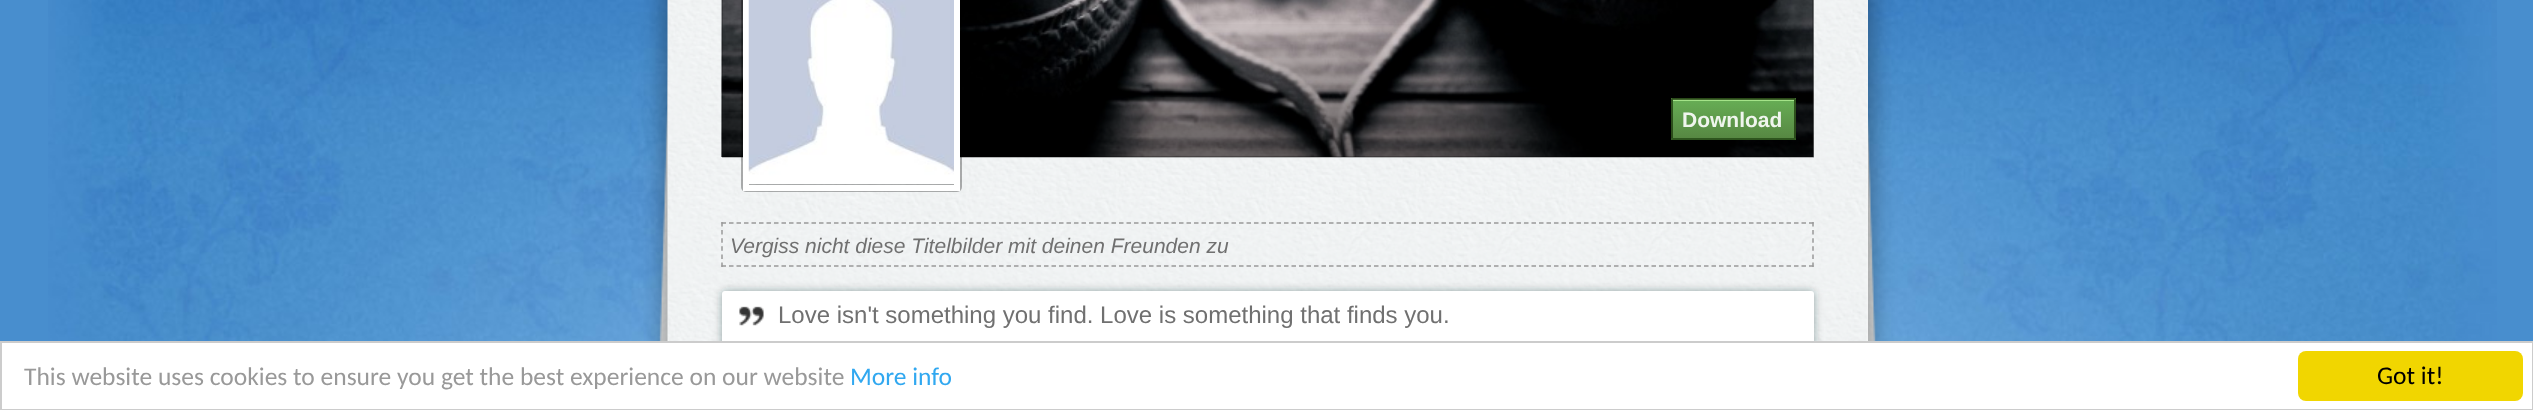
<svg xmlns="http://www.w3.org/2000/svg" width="2533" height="410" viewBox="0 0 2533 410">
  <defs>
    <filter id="blur1" x="-50%" y="-200%" width="200%" height="500%"><feGaussianBlur stdDeviation="11"/></filter>
    <linearGradient id="g1" gradientUnits="userSpaceOnUse" x1="1733" y1="60" x2="1733" y2="99"><stop offset="0" stop-color="#67ae55"/><stop offset="1" stop-color="#578843"/></linearGradient>
    <linearGradient id="g2" gradientUnits="userSpaceOnUse" x1="1733" y1="99" x2="1733" y2="138"><stop offset="0" stop-color="#67ae55"/><stop offset="1" stop-color="#578843"/></linearGradient>
    <linearGradient id="g3" gradientUnits="userSpaceOnUse" x1="1733" y1="138" x2="1733" y2="177"><stop offset="0" stop-color="#67ae55"/><stop offset="1" stop-color="#578843"/></linearGradient>
    <filter id="blur2" x="-50%" y="-200%" width="200%" height="500%"><feGaussianBlur stdDeviation="4"/></filter>
  </defs>
  <rect width="100%" height="100%" fill="#488ece"/>
  <image x="48" y="0" width="2449" height="341" href="img1.png"/>
  <image x="659" y="64" width="9" height="277" href="img3.png"/>
  <image x="1868" y="115" width="8" height="226" href="img7.png"/>
  <rect x="662" y="-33" width="1212" height="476" fill="#000000" fill-opacity="0.3" filter="url(#blur1)"/>
  <rect x="1867" y="0" width="1" height="341" fill="#f5f5f5"/>
  <image x="667" y="0" width="1201" height="341" href="img2.png"/>
  <path d="M721.5 223H1813.5" fill="none" stroke="#999999" stroke-width="1.5" stroke-dasharray="4.5 3"/>
  <path d="M1813 222V267" fill="none" stroke="#999999" stroke-width="1.5" stroke-dasharray="4.5 3.6"/>
  <path d="M721.5 266H1813.5" fill="none" stroke="#999999" stroke-width="1.5" stroke-dasharray="4.5 3"/>
  <path d="M722 222V267" fill="none" stroke="#999999" stroke-width="1.5" stroke-dasharray="4.5 3.6"/>
  <text x="730" y="253" font-family="Liberation Sans" font-size="21" font-style="italic" fill="#707070">Vergiss nicht diese Titelbilder mit deinen Freunden zu</text>
  <image x="721" y="0" width="1093" height="157" href="img4.png"/>
  <path d="M1814-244V158L1812 156V-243Z" fill="#000000" fill-opacity="0.25"/>
  <path d="M1814 158H722L723 156H1812Z" fill="#000000" fill-opacity="0.25"/>
  <path d="M722 158V-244L723-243V156Z" fill="#000000" fill-opacity="0.25"/>
  <image x="721" y="24" width="1093" height="133" href="img6.png"/>
  <rect x="741" y="-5" width="221" height="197" rx="5" fill="#000000" fill-opacity="0.3"/>
  <rect x="746" y="-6" width="211" height="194" fill="none" stroke="#ffffff" stroke-width="6"/>
  <image x="748" y="0" width="206" height="184" href="img5.png"/>
  <rect x="1671" y="98" width="125" height="1" fill="url(#g1)"/>
  <rect x="1671" y="99" width="125" height="39" fill="url(#g2)"/>
  <path d="M1671 138H1796V138.5C1796 139.5 1795.5 140 1794.5 140H1672.5C1671.5 140 1671 139.5 1671 138.5Z" fill="url(#g3)"/>
  <rect x="1673" y="99" width="121" height="2" fill="#a4e388"/>
  <rect x="1672" y="99" width="123" height="40" rx="0.5" fill="none" stroke="#172f07" stroke-opacity="0.7" stroke-width="2"/>
  <text x="1682" y="127" font-family="Liberation Sans" font-size="21" font-weight="bold" fill="#eff5ed">Download</text>
  <rect x="722" y="291" width="1092" height="68" rx="3" fill="#003232" fill-opacity="0.4" filter="url(#blur2)"/>
  <rect x="722" y="291" width="1092" height="68" rx="3" fill="#ffffff"/>
  <image x="739" y="306" width="25" height="20" href="img8.png"/>
  <text x="778" y="323" font-family="Liberation Sans" font-size="24" fill="#707070">Love isn't something you find. Love is something that finds you.</text>
  <rect x="1" y="342" width="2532" height="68" fill="#ffffff" stroke="#cccccc" stroke-width="2"/>
  <text x="24" y="385" font-family="Carlito" font-size="25.5" fill="#999999">This website uses cookies to ensure you get the best experience on our website</text>
  <text x="850" y="385" font-family="Carlito" font-size="25.5" fill="#31a8f0">More info</text>
  <rect x="2298" y="351" width="225" height="50" rx="8" fill="#f1d600"/>
  <text x="2377" y="384" font-family="Carlito" font-size="25.5" fill="#000000">Got it!</text>
</svg>
